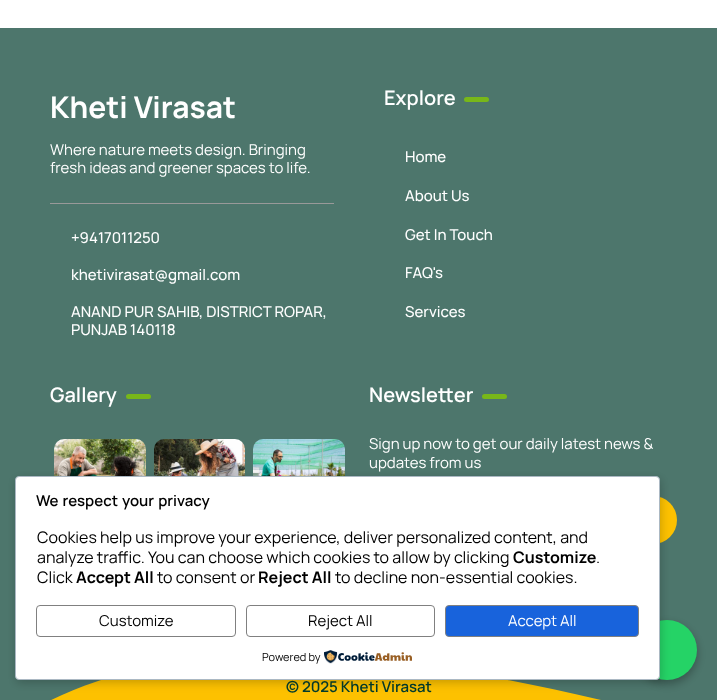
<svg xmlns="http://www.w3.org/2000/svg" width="717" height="700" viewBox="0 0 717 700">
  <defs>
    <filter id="blur1" x="-50%" y="-200%" width="200%" height="500%"><feGaussianBlur stdDeviation="5"/></filter>
  </defs>
  <rect width="100%" height="100%" fill="#ffffff"/>
  <rect x="0" y="28" width="717" height="672" fill="#4d766c"/>
  <text x="50" y="118" font-family="Manrope" font-size="30" font-weight="bold" fill="#ffffff">Kheti Virasat</text>
  <text x="50" y="155" font-family="Manrope" font-size="15" fill="#ffffff">Where nature meets design. Bringing</text>
  <text x="50" y="173" font-family="Manrope" font-size="15" fill="#ffffff">fresh ideas and greener spaces to life.</text>
  <rect x="50" y="203" width="284" height="1" fill="#999999"/>
  <text x="71" y="243" font-family="Manrope" font-size="15" font-weight="500" fill="#ffffff">+9417011250</text>
  <text x="71" y="280" font-family="Manrope" font-size="15" font-weight="500" fill="#ffffff">khetivirasat@gmail.com</text>
  <text x="71" y="317" font-family="Manrope" font-size="15" font-weight="500" fill="#ffffff">ANAND PUR SAHIB, DISTRICT ROPAR,</text>
  <text x="71" y="335" font-family="Manrope" font-size="15" font-weight="500" fill="#ffffff">PUNJAB 140118</text>
  <text x="384" y="105" font-family="Manrope" font-size="20" font-weight="600" fill="#ffffff">Explore</text>
  <rect x="464" y="97" width="25" height="5" rx="2.5" fill="#78b719"/>
  <text x="405" y="162" font-family="Manrope" font-size="15" font-weight="500" fill="#ffffff">Home</text>
  <text x="405" y="201" font-family="Manrope" font-size="15" font-weight="500" fill="#ffffff">About Us</text>
  <text x="405" y="240" font-family="Manrope" font-size="15" font-weight="500" fill="#ffffff">Get In Touch</text>
  <text x="405" y="278" font-family="Manrope" font-size="15" font-weight="500" fill="#ffffff">FAQ's</text>
  <text x="405" y="317" font-family="Manrope" font-size="15" font-weight="500" fill="#ffffff">Services</text>
  <text x="50" y="402" font-family="Manrope" font-size="20" font-weight="600" fill="#ffffff">Gallery</text>
  <rect x="126" y="394" width="25" height="5" rx="2.5" fill="#78b719"/>
  <image x="54" y="439" width="92" height="37" href="img1.png"/>
  <image x="154" y="439" width="91" height="37" href="img2.png"/>
  <image x="253" y="439" width="92" height="37" href="img3.png"/>
  <text x="369" y="402" font-family="Manrope" font-size="20" font-weight="600" fill="#ffffff">Newsletter</text>
  <rect x="482" y="394" width="25" height="5" rx="2.5" fill="#78b719"/>
  <text x="369" y="449" font-family="Manrope" font-size="15" fill="#ffffff">Sign up now to get our daily latest news &amp;</text>
  <text x="369" y="468" font-family="Manrope" font-size="15" fill="#ffffff">updates from us</text>
  <rect x="627" y="496" width="50" height="48" rx="24" fill="#fdc100"/>
  <rect x="637" y="624" width="60" height="60" rx="30" fill="#000000" fill-opacity="0.3" filter="url(#blur1)"/>
  <circle cx="667" cy="650" r="30" fill="#25d366"/>
  <path d="M0 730C143 630 358 630 717 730Z" fill="#fdc100"/>
  <text x="286" y="692" font-family="Manrope" font-size="15" font-weight="600" fill="#013b2d">© 2025 Kheti Virasat</text>
  <rect x="16" y="479" width="645" height="204" rx="4" fill="#000000" fill-opacity="0.2" filter="url(#blur1)"/>
  <rect x="15.5" y="476.5" width="644" height="203" rx="3.5" fill="#ffffff" stroke="#abb8c3"/>
  <text x="36" y="506" word-spacing="1" font-family="Manrope" font-size="15" font-weight="600" fill="#000000">We respect your privacy</text>
  <text x="37" y="543" font-family="Manrope" font-size="16" fill="#000000">Cookies help us improve your experience, deliver personalized content, and</text>
  <text x="37" y="563" font-family="Manrope" font-size="16" fill="#000000">analyze traffic. You can choose which cookies to allow by clicking</text>
  <text x="513" y="563" font-family="Manrope" font-size="16" font-weight="bold" fill="#000000">Customize</text>
  <text x="596" y="563" font-family="Manrope" font-size="16" fill="#000000">.</text>
  <text x="37" y="583" font-family="Manrope" font-size="16" fill="#000000">Click</text>
  <text x="76" y="583" font-family="Manrope" font-size="16" font-weight="bold" fill="#000000">Accept All</text>
  <text x="157" y="583" font-family="Manrope" font-size="16" fill="#000000">to consent or</text>
  <text x="258" y="583" font-family="Manrope" font-size="16" font-weight="bold" fill="#000000">Reject All</text>
  <text x="335" y="583" font-family="Manrope" font-size="16" fill="#000000">to decline non-essential cookies.</text>
  <rect x="36.5" y="605.5" width="199" height="31" rx="3.5" fill="none" stroke="#808080"/>
  <text x="99" y="626" font-family="Manrope" font-size="15" fill="#000000">Customize</text>
  <rect x="246.5" y="605.5" width="188" height="31" rx="3.5" fill="none" stroke="#808080"/>
  <text x="308" y="626" font-family="Manrope" font-size="15" fill="#000000">Reject All</text>
  <rect x="445.5" y="605.5" width="193" height="31" rx="3.5" fill="#1863dc" stroke="#808080"/>
  <text x="508" y="626" font-family="Manrope" font-size="15" fill="#ffffff">Accept All</text>
  <text x="262" y="661" font-family="Manrope" font-size="11" fill="#000000">Powered by</text>
  <image x="324" y="650" width="88" height="14" href="img4.png"/>
</svg>
